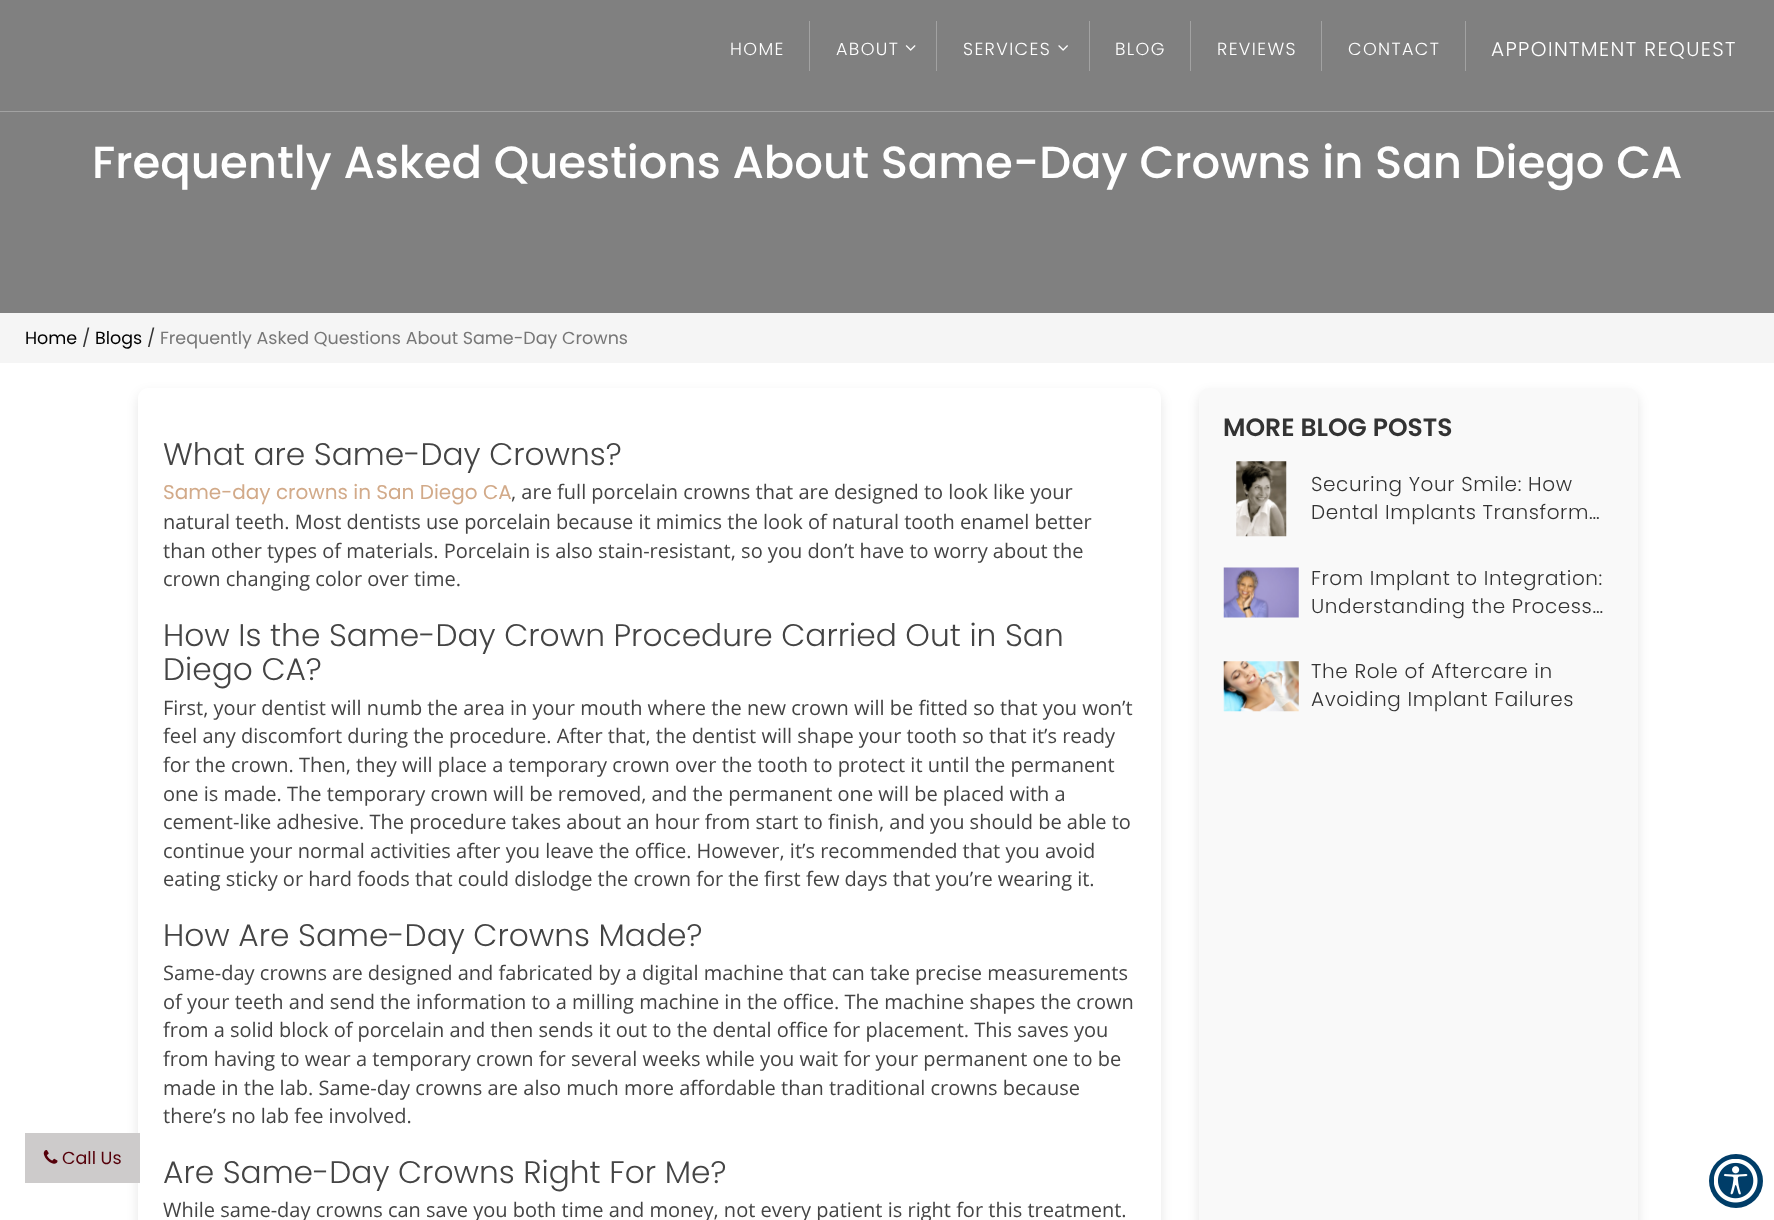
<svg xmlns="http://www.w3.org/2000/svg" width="1774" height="1220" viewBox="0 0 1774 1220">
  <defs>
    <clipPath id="clip1"><path d="M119 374H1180V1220H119ZM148 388H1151C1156.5 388 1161 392.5 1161 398V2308C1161 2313.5 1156.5 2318 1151 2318H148C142.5 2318 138 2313.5 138 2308V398C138 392.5 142.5 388 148 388Z" clip-rule="evenodd"/></clipPath>
    <filter id="blur1" x="-50%" y="-200%" width="200%" height="500%"><feGaussianBlur stdDeviation="6"/></filter>
  </defs>
  <rect width="100%" height="100%" fill="#ffffff"/>
  <rect x="0" y="0" width="1774" height="313" fill="#808080"/>
  <rect x="0" y="111" width="1774" height="1" fill="#a2a2a2"/>
  <rect x="809" y="21" width="1" height="50" fill="#a2a2a2"/>
  <text x="730" y="55" font-family="Poppins" font-size="17.5" font-weight="300" letter-spacing="1.4" fill="#ffffff">HOME</text>
  <rect x="936" y="21" width="1" height="50" fill="#a2a2a2"/>
  <text x="836" y="55" font-family="Poppins" font-size="17.5" font-weight="300" letter-spacing="1.4" fill="#ffffff">ABOUT</text>
  <image x="905" y="45" width="11" height="6" href="img1.png"/>
  <rect x="1089" y="21" width="1" height="50" fill="#a2a2a2"/>
  <text x="963" y="55" font-family="Poppins" font-size="17.5" font-weight="300" letter-spacing="1.4" fill="#ffffff">SERVICES</text>
  <image x="1058" y="45" width="10" height="6" href="img2.png"/>
  <rect x="1190" y="21" width="1" height="50" fill="#a2a2a2"/>
  <text x="1115" y="55" font-family="Poppins" font-size="17.5" font-weight="300" letter-spacing="1.4" fill="#ffffff">BLOG</text>
  <rect x="1321" y="21" width="1" height="50" fill="#a2a2a2"/>
  <text x="1217" y="55" font-family="Poppins" font-size="17.5" font-weight="300" letter-spacing="1.4" fill="#ffffff">REVIEWS</text>
  <rect x="1465" y="21" width="1" height="50" fill="#a2a2a2"/>
  <text x="1348" y="55" font-family="Poppins" font-size="17.5" font-weight="300" letter-spacing="1.4" fill="#ffffff">CONTACT</text>
  <text x="1491" y="56" font-family="Poppins" font-size="20" font-weight="300" letter-spacing="1.4" fill="#ffffff">APPOINTMENT REQUEST</text>
  <text x="92" y="178" font-family="Poppins" font-size="45" font-weight="500" fill="#ffffff">Frequently Asked Questions About Same-Day Crowns in San Diego CA</text>
  <rect x="0" y="313" width="1774" height="50" fill="#f5f5f5"/>
  <text x="25" y="344" font-family="Poppins" font-size="17.5" fill="#000000">Home</text>
  <text x="82" y="344" font-family="Poppins" font-size="17.5" fill="#333333">/</text>
  <text x="95" y="344" font-family="Poppins" font-size="17.5" fill="#000000">Blogs</text>
  <text x="147" y="344" font-family="Poppins" font-size="17.5" fill="#333333">/</text>
  <text x="160" y="344" font-family="Poppins" font-size="17.5" fill="#777777">Frequently Asked Questions About Same-Day Crowns</text>
  <g clip-path="url(#clip1)">
    <rect x="138" y="393" width="1023" height="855" rx="10" fill="#000000" fill-opacity="0.1" filter="url(#blur1)"/>
  </g>
  <rect x="25" y="1133" width="115" height="50" fill="#cdcbcb"/>
  <image x="43" y="1150" width="15" height="14" href="img3.png"/>
  <text x="62" y="1164" font-family="Poppins" font-size="17.5" fill="#55000a">Call Us</text>
  <text x="163" y="465" font-family="Poppins" font-size="31.25" font-weight="300" fill="#444444">What are Same-Day Crowns?</text>
  <text x="163" y="499" font-family="Poppins" font-size="20" fill="#d2aa89">Same-day crowns in San Diego CA</text>
  <text x="511" y="499" font-family="Open Sans" font-size="20" fill="#444444">, are full porcelain crowns that are designed to look like your</text>
  <text x="163" y="529" font-family="Open Sans" font-size="20" fill="#444444">natural teeth. Most dentists use porcelain because it mimics the look of natural tooth enamel better</text>
  <text x="163" y="558" font-family="Open Sans" font-size="20" fill="#444444">than other types of materials. Porcelain is also stain-resistant, so you don’t have to worry about the</text>
  <text x="163" y="586" font-family="Open Sans" font-size="20" fill="#444444">crown changing color over time.</text>
  <text x="163" y="646" font-family="Poppins" font-size="31.25" font-weight="300" fill="#444444">How Is the Same-Day Crown Procedure Carried Out in San</text>
  <text x="163" y="680" font-family="Poppins" font-size="31.25" font-weight="300" fill="#444444">Diego CA?</text>
  <text x="163" y="715" font-family="Open Sans" font-size="20" fill="#444444">First, your dentist will numb the area in your mouth where the new crown will be fitted so that you won’t</text>
  <text x="163" y="743" font-family="Open Sans" font-size="20" fill="#444444">feel any discomfort during the procedure. After that, the dentist will shape your tooth so that it’s ready</text>
  <text x="163" y="772" font-family="Open Sans" font-size="20" fill="#444444">for the crown. Then, they will place a temporary crown over the tooth to protect it until the permanent</text>
  <text x="163" y="801" font-family="Open Sans" font-size="20" fill="#444444">one is made. The temporary crown will be removed, and the permanent one will be placed with a</text>
  <text x="163" y="829" font-family="Open Sans" font-size="20" fill="#444444">cement-like adhesive. The procedure takes about an hour from start to finish, and you should be able to</text>
  <text x="163" y="858" font-family="Open Sans" font-size="20" fill="#444444">continue your normal activities after you leave the office. However, it’s recommended that you avoid</text>
  <text x="163" y="886" font-family="Open Sans" font-size="20" fill="#444444">eating sticky or hard foods that could dislodge the crown for the first few days that you’re wearing it.</text>
  <text x="163" y="946" font-family="Poppins" font-size="31.25" font-weight="300" fill="#444444">How Are Same-Day Crowns Made?</text>
  <text x="163" y="980" font-family="Open Sans" font-size="20" fill="#444444">Same-day crowns are designed and fabricated by a digital machine that can take precise measurements</text>
  <text x="163" y="1009" font-family="Open Sans" font-size="20" fill="#444444">of your teeth and send the information to a milling machine in the office. The machine shapes the crown</text>
  <text x="163" y="1037" font-family="Open Sans" font-size="20" fill="#444444">from a solid block of porcelain and then sends it out to the dental office for placement. This saves you</text>
  <text x="163" y="1066" font-family="Open Sans" font-size="20" fill="#444444">from having to wear a temporary crown for several weeks while you wait for your permanent one to be</text>
  <text x="163" y="1095" font-family="Open Sans" font-size="20" fill="#444444">made in the lab. Same-day crowns are also much more affordable than traditional crowns because</text>
  <text x="163" y="1123" font-family="Open Sans" font-size="20" fill="#444444">there’s no lab fee involved.</text>
  <text x="163" y="1183" font-family="Poppins" font-size="31.25" font-weight="300" fill="#444444">Are Same-Day Crowns Right For Me?</text>
  <text x="163" y="1217" font-family="Open Sans" font-size="20" fill="#444444">While same-day crowns can save you both time and money, not every patient is right for this treatment.</text>
  <rect x="1199" y="393" width="439" height="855" rx="10" fill="#000000" fill-opacity="0.1" filter="url(#blur1)"/>
  <rect x="1199" y="388" width="439" height="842" rx="10" fill="#f9f9f9"/>
  <text x="1223" y="436" font-family="Poppins" font-size="25" font-weight="600" fill="#333333">MORE BLOG POSTS</text>
  <image x="1236" y="461" width="51" height="76" href="img4.png"/>
  <text x="1311" y="491" font-family="Poppins" font-size="20" font-weight="300" letter-spacing="0.6" fill="#333333">Securing Your Smile: How</text>
  <text x="1311" y="519" font-family="Poppins" font-size="20" font-weight="300" letter-spacing="0.6" fill="#333333">Dental Implants Transform…</text>
  <image x="1223" y="567" width="76" height="51" href="img5.png"/>
  <text x="1311" y="585" font-family="Poppins" font-size="20" font-weight="300" letter-spacing="0.6" fill="#333333">From Implant to Integration:</text>
  <text x="1311" y="613" font-family="Poppins" font-size="20" font-weight="300" letter-spacing="0.6" fill="#333333">Understanding the Process…</text>
  <image x="1223" y="661" width="76" height="51" href="img6.png"/>
  <text x="1311" y="678" font-family="Poppins" font-size="20" font-weight="300" letter-spacing="0.6" fill="#333333">The Role of Aftercare in</text>
  <text x="1311" y="706" font-family="Poppins" font-size="20" font-weight="300" letter-spacing="0.6" fill="#333333">Avoiding Implant Failures</text>
  <circle cx="1736" cy="1181" r="27" fill="#003d68"/>
  <image x="1714" y="1159" width="44" height="44" href="img7.png"/>
</svg>
